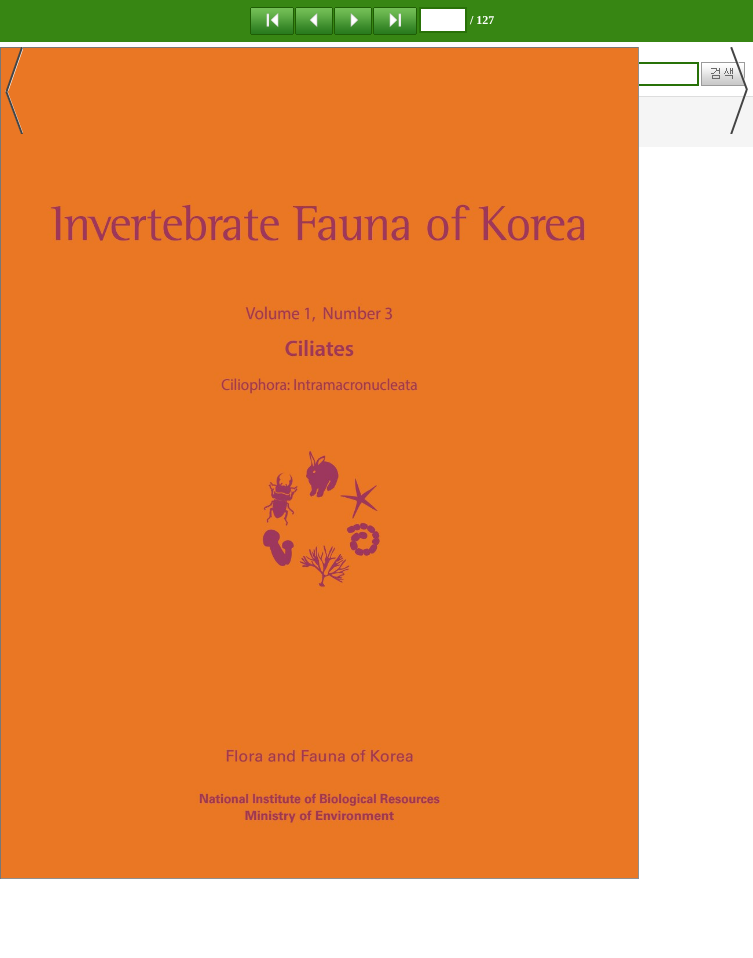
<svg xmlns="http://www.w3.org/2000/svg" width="753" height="958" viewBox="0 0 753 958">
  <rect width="100%" height="100%" fill="#ffffff"/>
  <rect x="0" y="0" width="753" height="42" fill="#378613"/>
  <image x="250" y="7" width="44" height="28" href="img1.png"/>
  <image x="295" y="7" width="38" height="28" href="img2.png"/>
  <image x="334" y="7" width="38" height="28" href="img3.png"/>
  <image x="373" y="7" width="44" height="28" href="img4.png"/>
  <rect x="420" y="8" width="46" height="24" fill="#ffffff" stroke="#287108" stroke-width="2"/>
  <text x="470" y="24" font-family="Liberation Serif" font-size="12" font-weight="bold" fill="#ffffff">/ 127</text>
  <rect x="0" y="47" width="639" height="1" fill="#777777"/>
  <rect x="580" y="63" width="118" height="22" fill="none" stroke="#287108" stroke-width="2"/>
  <rect x="638" y="47" width="1" height="832" fill="#8f8f8f"/>
  <rect x="0" y="878" width="639" height="1" fill="#8f8f8f"/>
  <rect x="0" y="47" width="1" height="832" fill="#777777"/>
  <image x="1" y="48" width="637" height="830" href="img5.png"/>
  <image x="5" y="47" width="18" height="87" href="img6.png"/>
  <image x="701" y="62" width="44" height="24" href="img8.png"/>
  <rect x="639" y="97" width="114" height="50" fill="#f5f5f5"/>
  <rect x="639" y="96" width="114" height="1" fill="#dddddd"/>
  <image x="730" y="47" width="18" height="87" href="img7.png"/>
</svg>
